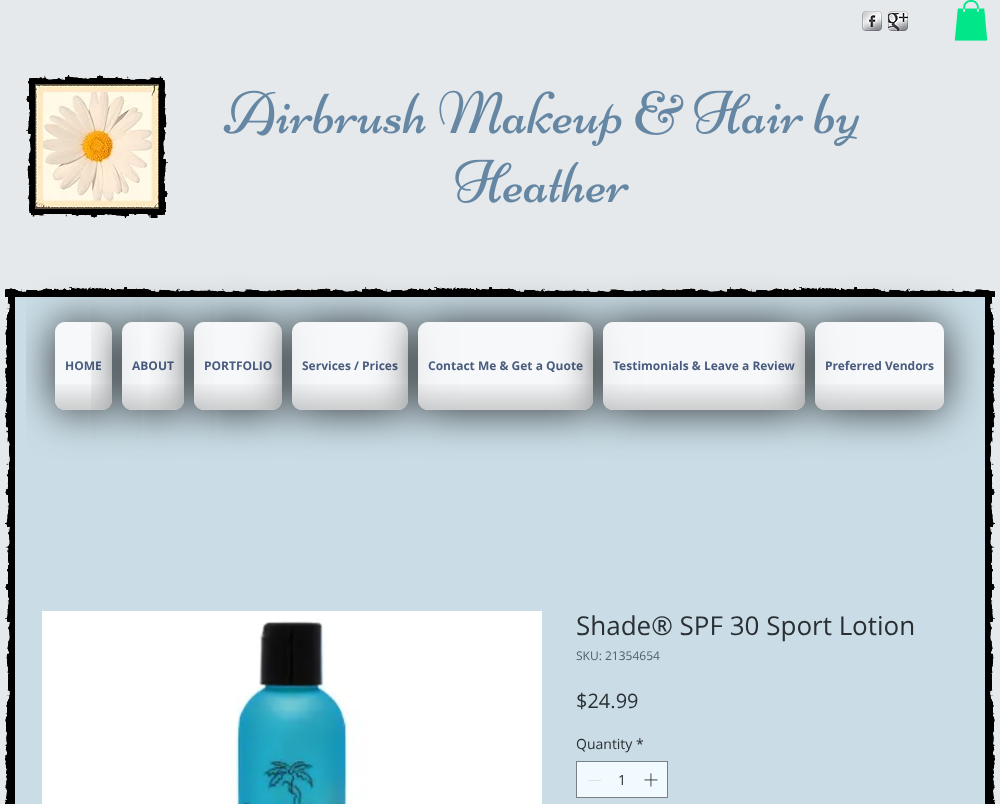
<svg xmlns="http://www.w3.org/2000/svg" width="1000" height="804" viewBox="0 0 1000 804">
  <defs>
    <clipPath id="clip1"><path d="M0 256H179V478H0ZM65 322H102C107.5 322 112 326.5 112 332V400C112 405.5 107.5 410 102 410H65C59.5 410 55 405.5 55 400V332C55 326.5 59.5 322 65 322Z" clip-rule="evenodd"/></clipPath>
    <filter id="blur1" x="-50%" y="-200%" width="200%" height="500%"><feGaussianBlur stdDeviation="22"/></filter>
    <clipPath id="clip2"><path d="M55 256H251V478H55ZM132 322H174C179.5 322 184 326.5 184 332V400C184 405.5 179.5 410 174 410H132C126.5 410 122 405.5 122 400V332C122 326.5 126.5 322 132 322Z" clip-rule="evenodd"/></clipPath>
    <clipPath id="clip3"><path d="M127 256H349V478H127ZM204 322H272C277.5 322 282 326.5 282 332V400C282 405.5 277.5 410 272 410H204C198.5 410 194 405.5 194 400V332C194 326.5 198.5 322 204 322Z" clip-rule="evenodd"/></clipPath>
    <clipPath id="clip4"><path d="M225 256H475V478H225ZM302 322H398C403.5 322 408 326.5 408 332V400C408 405.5 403.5 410 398 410H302C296.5 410 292 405.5 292 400V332C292 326.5 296.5 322 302 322Z" clip-rule="evenodd"/></clipPath>
    <clipPath id="clip5"><path d="M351 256H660V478H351ZM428 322H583C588.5 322 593 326.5 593 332V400C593 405.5 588.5 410 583 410H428C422.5 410 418 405.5 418 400V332C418 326.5 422.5 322 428 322Z" clip-rule="evenodd"/></clipPath>
    <clipPath id="clip6"><path d="M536 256H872V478H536ZM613 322H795C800.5 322 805 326.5 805 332V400C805 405.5 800.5 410 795 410H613C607.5 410 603 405.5 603 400V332C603 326.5 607.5 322 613 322Z" clip-rule="evenodd"/></clipPath>
    <clipPath id="clip7"><path d="M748 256H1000V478H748ZM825 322H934C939.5 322 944 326.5 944 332V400C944 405.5 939.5 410 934 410H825C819.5 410 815 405.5 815 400V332C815 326.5 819.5 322 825 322Z" clip-rule="evenodd"/></clipPath>
  </defs>
  <rect width="100%" height="100%" fill="#e6e9eb"/>
  <image x="862" y="11" width="20" height="20" href="img1.png"/>
  <image x="888" y="11" width="20" height="20" href="img2.png"/>
  <image x="31" y="80" width="137" height="138" href="img5.png"/>
  <image x="26" y="75" width="137" height="138" href="img3.png"/>
  <image x="35" y="84" width="124" height="125" href="img4.png"/>
  <image x="223" y="90" width="636" height="56" href="img6.png"/>
  <image x="455" y="159" width="174" height="44" href="img7.png"/>
  <image x="954" y="0" width="34" height="41" href="img8.png"/>
  <rect x="15" y="297" width="970" height="507" fill="#cadde6"/>
  <image x="5" y="287" width="990" height="10" href="img16.png"/>
  <image x="5" y="297" width="10" height="507" href="img17.png"/>
  <g clip-path="url(#clip1)">
    <rect x="55" y="323" width="57" height="88" rx="10" fill="#000000" fill-opacity="0.78" filter="url(#blur1)"/>
  </g>
  <rect x="55" y="322" width="57" height="88" rx="10" fill="#fefdfd" fill-opacity="0.84"/>
  <image x="55" y="384" width="57" height="26" href="img9.png"/>
  <text x="65" y="370" font-family="Open Sans" font-size="12" font-weight="bold" fill="#495c80">HOME</text>
  <g clip-path="url(#clip2)">
    <rect x="122" y="323" width="62" height="88" rx="10" fill="#000000" fill-opacity="0.78" filter="url(#blur1)"/>
  </g>
  <rect x="122" y="322" width="62" height="88" rx="10" fill="#fefdfd" fill-opacity="0.84"/>
  <image x="122" y="384" width="62" height="26" href="img10.png"/>
  <text x="132" y="370" font-family="Open Sans" font-size="12" font-weight="bold" fill="#495c80">ABOUT</text>
  <g clip-path="url(#clip3)">
    <rect x="194" y="323" width="88" height="88" rx="10" fill="#000000" fill-opacity="0.78" filter="url(#blur1)"/>
  </g>
  <rect x="194" y="322" width="88" height="88" rx="10" fill="#fefdfd" fill-opacity="0.84"/>
  <image x="194" y="384" width="88" height="26" href="img11.png"/>
  <text x="204" y="370" font-family="Open Sans" font-size="12" font-weight="bold" fill="#495c80">PORTFOLIO</text>
  <g clip-path="url(#clip4)">
    <rect x="292" y="323" width="116" height="88" rx="10" fill="#000000" fill-opacity="0.78" filter="url(#blur1)"/>
  </g>
  <rect x="292" y="322" width="116" height="88" rx="10" fill="#fefdfd" fill-opacity="0.84"/>
  <image x="292" y="384" width="116" height="26" href="img12.png"/>
  <text x="302" y="370" font-family="Open Sans" font-size="12" font-weight="bold" fill="#495c80">Services / Prices</text>
  <g clip-path="url(#clip5)">
    <rect x="418" y="323" width="175" height="88" rx="10" fill="#000000" fill-opacity="0.78" filter="url(#blur1)"/>
  </g>
  <rect x="418" y="322" width="175" height="88" rx="10" fill="#fefdfd" fill-opacity="0.84"/>
  <image x="418" y="384" width="175" height="26" href="img13.png"/>
  <text x="428" y="370" font-family="Open Sans" font-size="12" font-weight="bold" fill="#495c80">Contact Me &amp; Get a Quote</text>
  <g clip-path="url(#clip6)">
    <rect x="603" y="323" width="202" height="88" rx="10" fill="#000000" fill-opacity="0.78" filter="url(#blur1)"/>
  </g>
  <rect x="603" y="322" width="202" height="88" rx="10" fill="#fefdfd" fill-opacity="0.84"/>
  <image x="603" y="384" width="202" height="26" href="img14.png"/>
  <text x="613" y="370" font-family="Open Sans" font-size="12" font-weight="bold" fill="#495c80">Testimonials &amp; Leave a Review</text>
  <image x="985" y="297" width="10" height="507" href="img18.png"/>
  <g clip-path="url(#clip7)">
    <rect x="815" y="323" width="129" height="88" rx="10" fill="#000000" fill-opacity="0.78" filter="url(#blur1)"/>
  </g>
  <rect x="815" y="322" width="129" height="88" rx="10" fill="#fefdfd" fill-opacity="0.84"/>
  <image x="815" y="384" width="129" height="26" href="img15.png"/>
  <text x="825" y="370" font-family="Open Sans" font-size="12" font-weight="bold" fill="#495c80">Preferred Vendors</text>
  <image x="42" y="611" width="500" height="193" href="img19.png"/>
  <text x="576" y="635" font-family="Open Sans" font-size="26" fill="#292f33">Shade® SPF 30 Sport Lotion</text>
  <text x="576" y="660" font-family="Open Sans" font-size="12" fill="#515e65">SKU: 21354654</text>
  <text x="576" y="708" font-family="Open Sans" font-size="20" fill="#292f33">$24.99</text>
  <text x="576" y="749" font-family="Open Sans" font-size="14" fill="#292f33">Quantity</text>
  <text x="636" y="749" font-family="Open Sans" font-size="14" fill="#292f33">*</text>
  <rect x="576.5" y="761.5" width="91" height="36" fill="#f0faff" stroke="#798085"/>
  <rect x="588" y="780" width="13" height="1" fill="#dce1e3"/>
  <text x="618" y="785" font-family="Open Sans" font-size="14" fill="#292f33">1</text>
  <image x="644" y="773" width="14" height="14" href="img20.png"/>
</svg>
